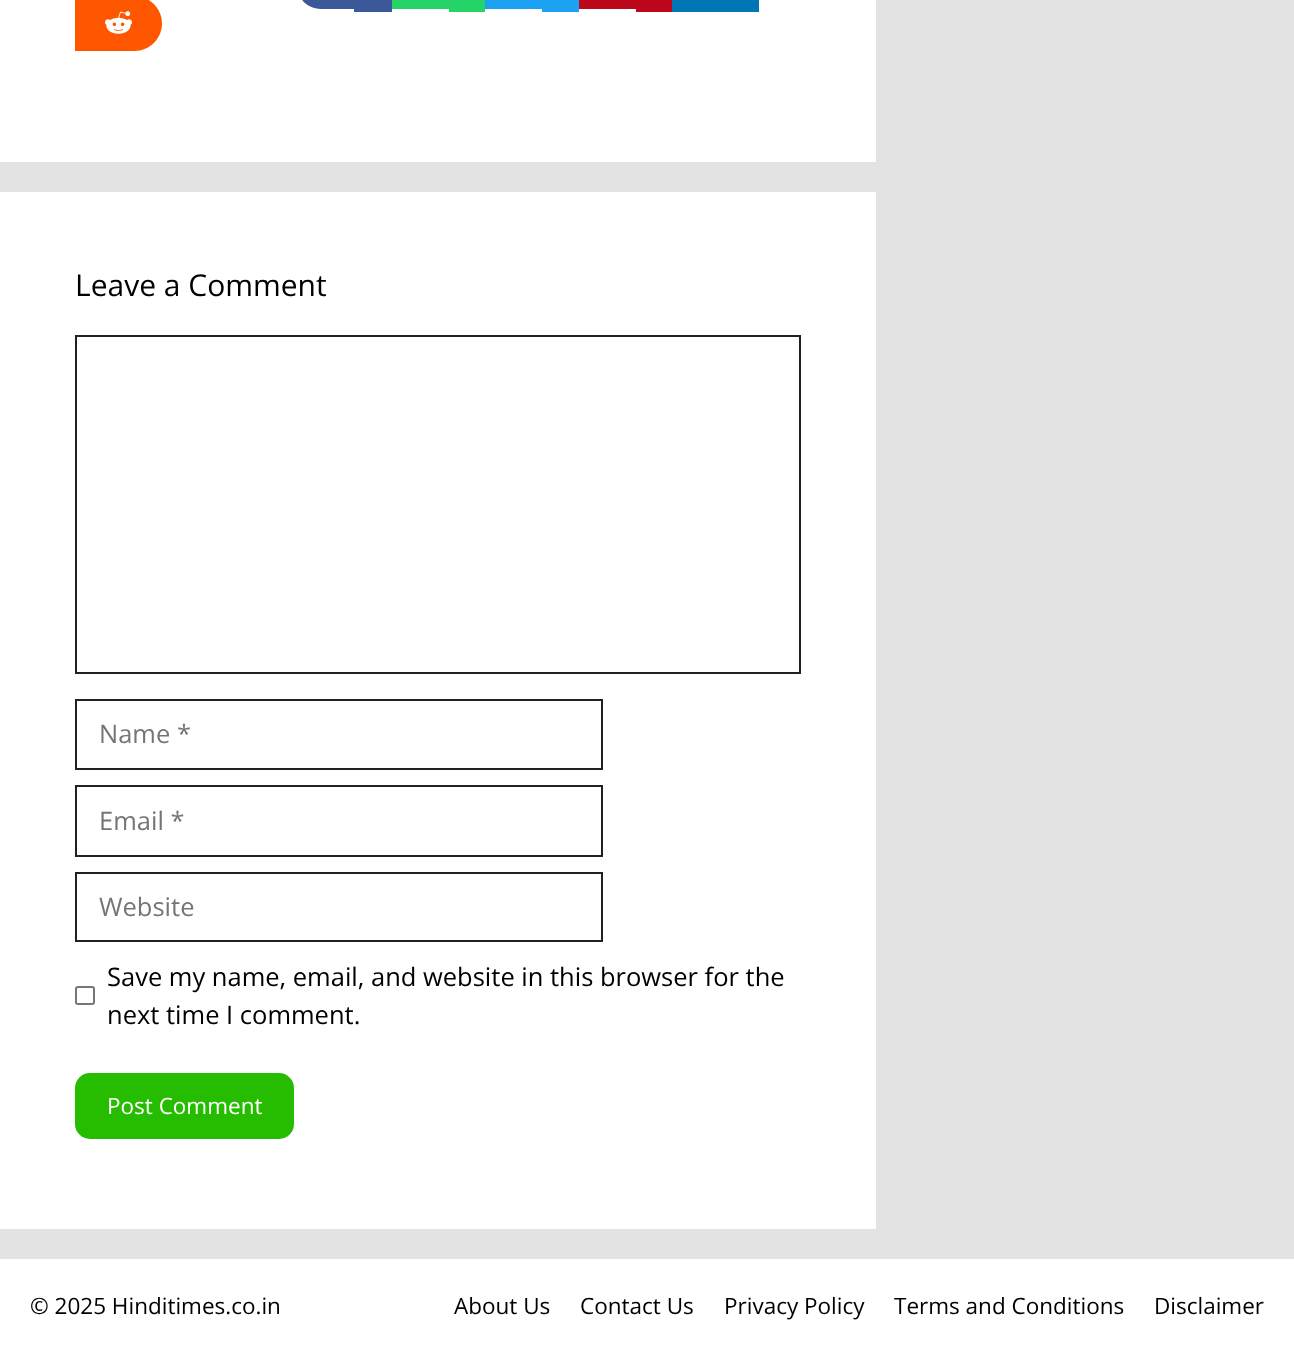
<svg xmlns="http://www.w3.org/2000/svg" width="1294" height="1351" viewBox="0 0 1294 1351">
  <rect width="100%" height="100%" fill="#e4e3e3"/>
  <rect x="0" y="0" width="876" height="162" fill="#ffffff"/>
  <path d="M321-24H354V9H321C307.5 9 297-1.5 297-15V0C297-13.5 307.5-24 321-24Z" fill="#3b5998"/>
  <path d="M75-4H134.5C149.5-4 162 8.5 162 23.5C162 38.5 149.5 51 134.5 51H75Z" fill="#ff5700"/>
  <image x="105" y="11" width="27" height="23" href="img1.png"/>
  <rect x="354" y="0" width="38" height="12" fill="#3b5998"/>
  <rect x="392" y="0" width="57" height="9" fill="#25d366"/>
  <rect x="449" y="0" width="36" height="12" fill="#25d366"/>
  <rect x="485" y="0" width="57" height="9" fill="#1da1f2"/>
  <rect x="542" y="0" width="37" height="12" fill="#1da1f2"/>
  <rect x="579" y="0" width="57" height="9" fill="#bd081c"/>
  <rect x="636" y="0" width="36" height="12" fill="#bd081c"/>
  <rect x="672" y="0" width="87" height="12" fill="#0077b5"/>
  <rect x="0" y="192" width="876" height="1037" fill="#ffffff"/>
  <text x="75" y="296" font-family="Open Sans" font-size="30" fill="#000000">Leave a Comment</text>
  <rect x="76" y="336" width="724" height="337" fill="none" stroke="#212121" stroke-width="2"/>
  <rect x="76" y="700" width="526" height="69" fill="none" stroke="#212121" stroke-width="2"/>
  <text x="99" y="743" font-family="Open Sans" font-size="25.5" fill="#757575">Name *</text>
  <rect x="76" y="786" width="526" height="70" fill="none" stroke="#212121" stroke-width="2"/>
  <text x="99" y="830" font-family="Open Sans" font-size="25.5" fill="#757575">Email *</text>
  <rect x="76" y="873" width="526" height="68" fill="none" stroke="#212121" stroke-width="2"/>
  <text x="99" y="916" font-family="Open Sans" font-size="25.5" fill="#757575">Website</text>
  <rect x="76" y="987" width="18" height="17" rx="2" fill="none" stroke="#767676" stroke-width="2"/>
  <text x="107" y="986" font-family="Open Sans" font-size="25.5" fill="#000000">Save my name, email, and website in this browser for the</text>
  <text x="107" y="1024" font-family="Open Sans" font-size="25.5" fill="#000000">next time I comment.</text>
  <rect x="75" y="1073" width="219" height="66" rx="15" fill="#26bc00"/>
  <text x="107" y="1114" font-family="Open Sans" font-size="22.5" fill="#ffffff">Post Comment</text>
  <rect x="0" y="1259" width="1294" height="92" fill="#ffffff"/>
  <text x="30" y="1314" font-family="Open Sans" font-size="22.5" fill="#000000">© 2025 Hinditimes.co.in</text>
  <text x="454" y="1314" font-family="Open Sans" font-size="22.5" fill="#000000">About Us</text>
  <text x="580" y="1314" font-family="Open Sans" font-size="22.5" fill="#000000">Contact Us</text>
  <text x="724" y="1314" font-family="Open Sans" font-size="22.5" fill="#000000">Privacy Policy</text>
  <text x="894" y="1314" font-family="Open Sans" font-size="22.5" fill="#000000">Terms and Conditions</text>
  <text x="1154" y="1314" font-family="Open Sans" font-size="22.5" fill="#000000">Disclaimer</text>
</svg>
